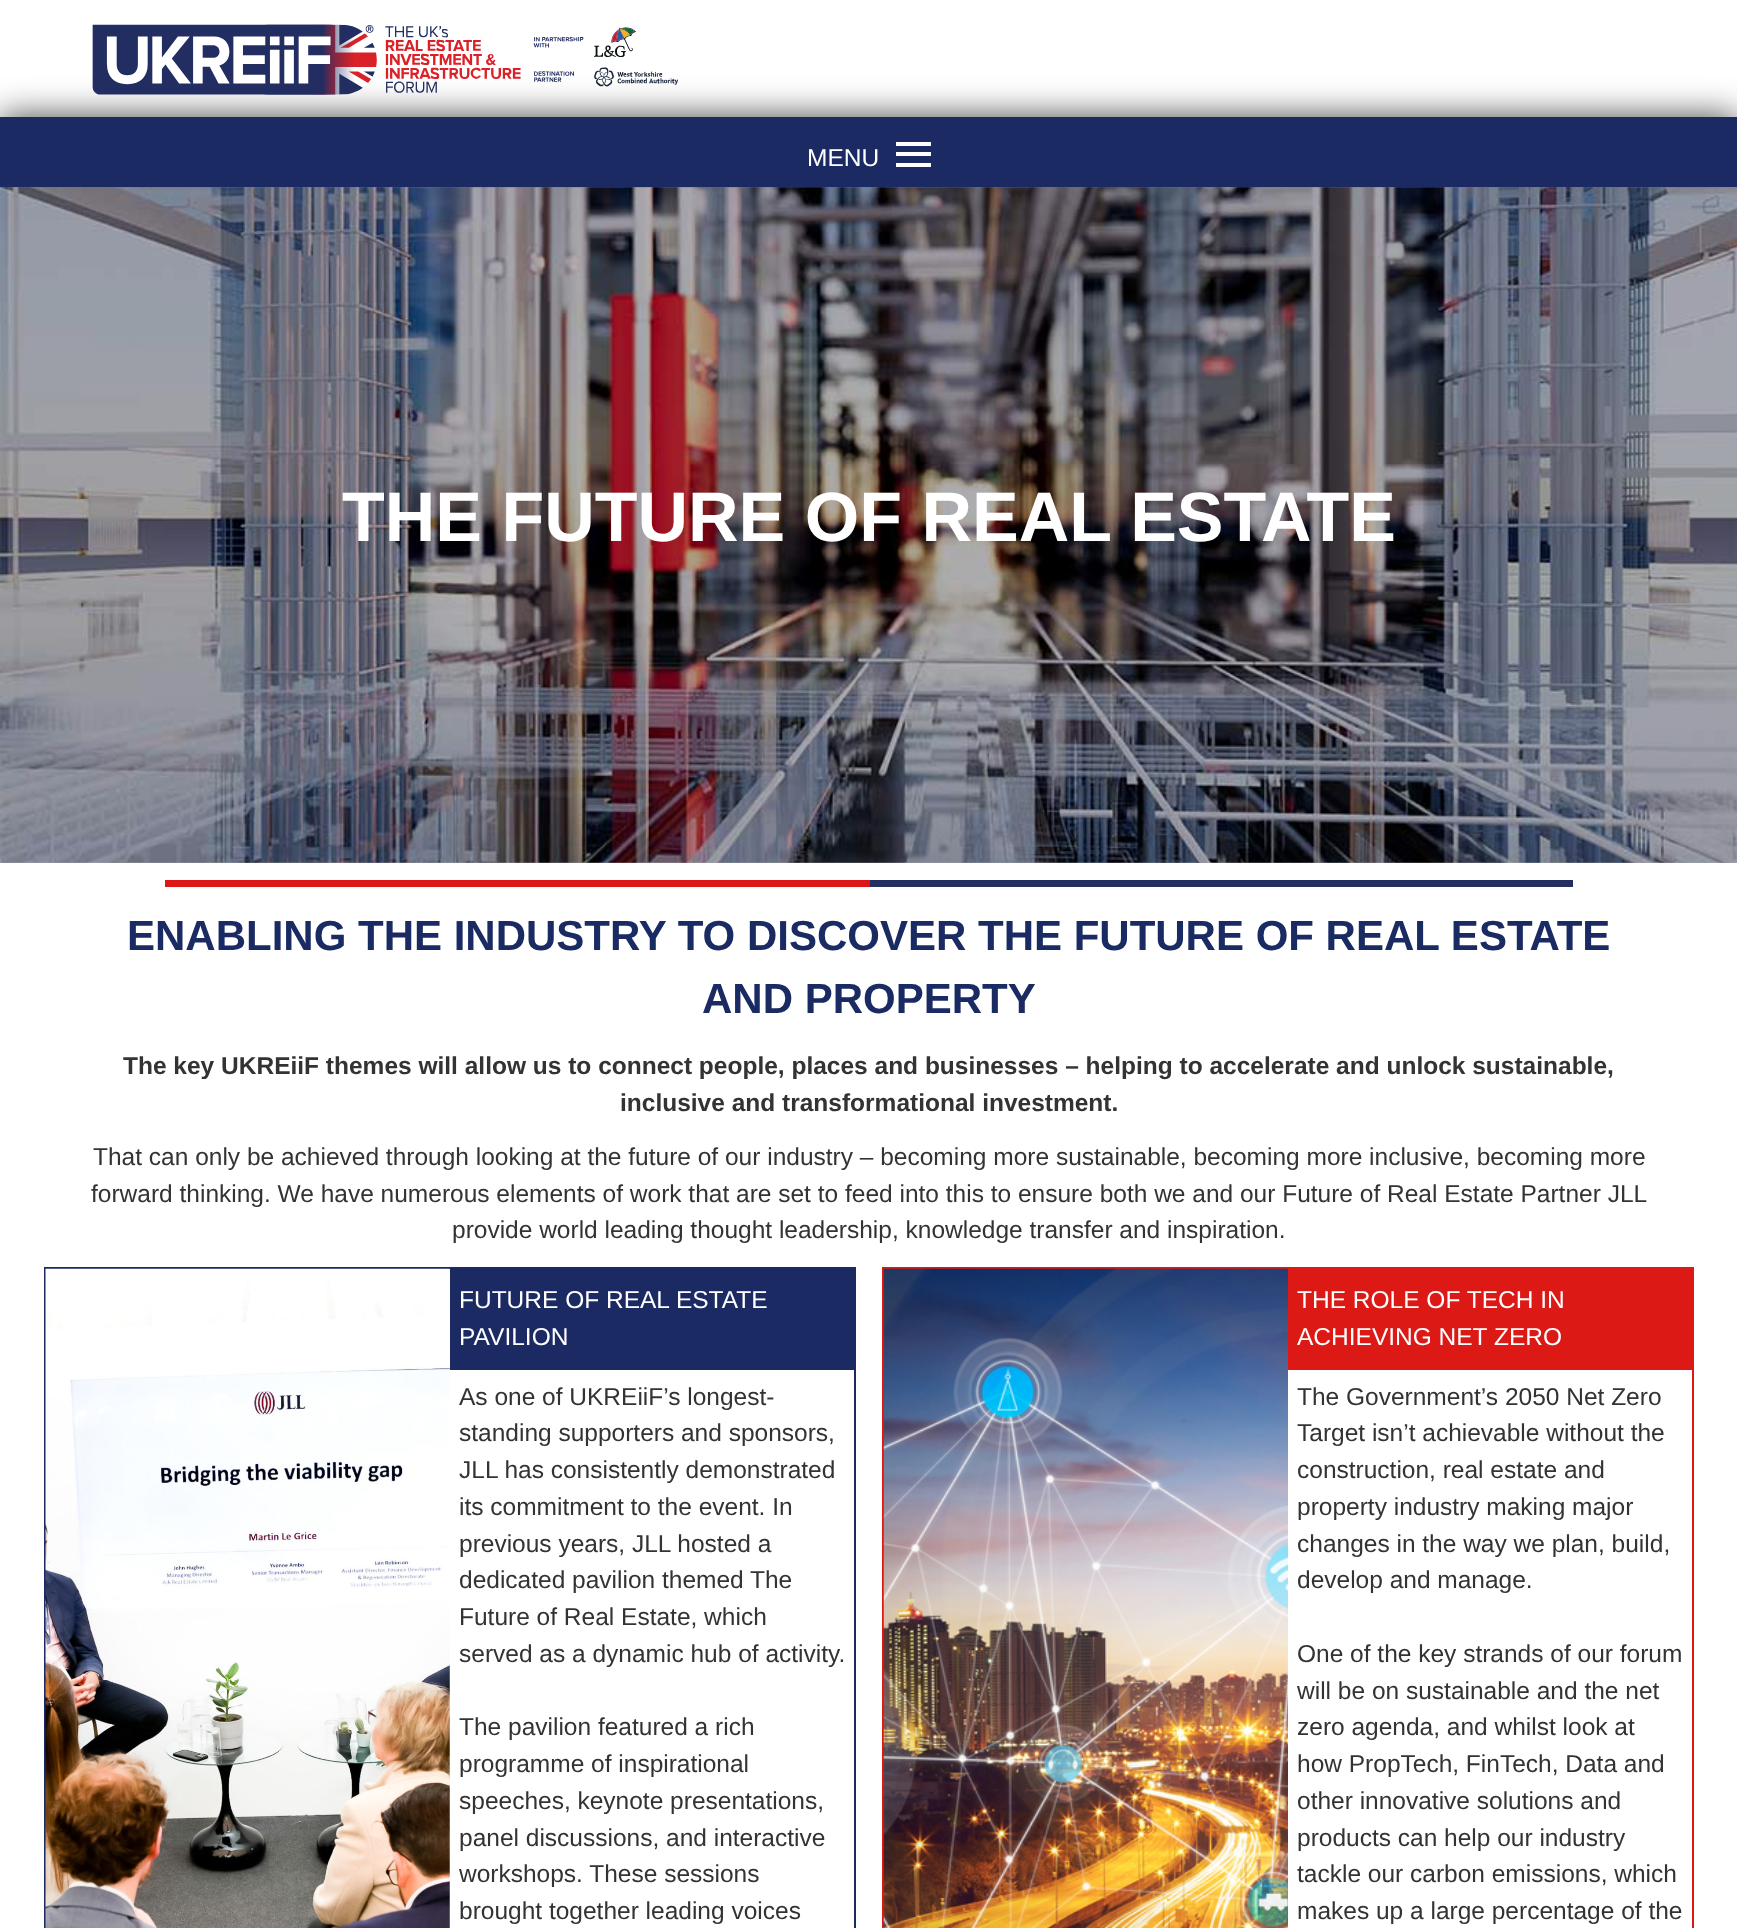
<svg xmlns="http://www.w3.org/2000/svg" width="1737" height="1928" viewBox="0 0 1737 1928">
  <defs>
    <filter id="blur1" x="-50%" y="-200%" width="200%" height="500%"><feGaussianBlur stdDeviation="17.5"/></filter>
  </defs>
  <rect width="100%" height="100%" fill="#ffffff"/>
  <rect x="0" y="117" width="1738" height="70" fill="#000000" fill-opacity="0.75" filter="url(#blur1)"/>
  <image x="92" y="24" width="587" height="71" href="img1.png"/>
  <rect x="0" y="117" width="1737" height="70" fill="#1b2a62"/>
  <text x="807" y="166" font-family="Liberation Sans" font-size="24.5" fill="#ffffff">MENU</text>
  <rect x="896" y="142" width="35" height="4" fill="#ffffff"/>
  <rect x="896" y="152" width="35" height="4" fill="#ffffff"/>
  <rect x="896" y="163" width="35" height="4" fill="#ffffff"/>
  <image x="0" y="187" width="1737" height="676" href="img2.png"/>
  <rect x="0" y="187" width="1737" height="676" fill="#000000" fill-opacity="0.3"/>
  <text x="342" y="541" font-family="Liberation Sans" font-size="70" font-weight="bold" fill="#ffffff">THE FUTURE OF REAL ESTATE</text>
  <rect x="165" y="880" width="705" height="7" fill="#dc1516"/>
  <rect x="870" y="880" width="703" height="7" fill="#242e5f"/>
  <text x="127" y="950" font-family="Liberation Sans" font-size="42" font-weight="bold" fill="#1a2a62">ENABLING THE INDUSTRY TO DISCOVER THE FUTURE OF REAL ESTATE</text>
  <text x="702" y="1013" font-family="Liberation Sans" font-size="42" font-weight="bold" fill="#1a2a62">AND PROPERTY</text>
  <text x="123" y="1074" font-family="Liberation Sans" font-size="24.5" font-weight="bold" fill="#333333">The key UKREiiF themes will allow us to connect people, places and businesses – helping to accelerate and unlock sustainable,</text>
  <text x="620" y="1111" font-family="Liberation Sans" font-size="24.5" font-weight="bold" fill="#333333">inclusive and transformational investment.</text>
  <text x="93" y="1165" font-family="Liberation Sans" font-size="24.5" fill="#333333">That can only be achieved through looking at the future of our industry – becoming more sustainable, becoming more inclusive, becoming more</text>
  <text x="91" y="1202" font-family="Liberation Sans" font-size="24.5" fill="#333333">forward thinking. We have numerous elements of work that are set to feed into this to ensure both we and our Future of Real Estate Partner JLL</text>
  <text x="452" y="1238" font-family="Liberation Sans" font-size="24.5" fill="#333333">provide world leading thought leadership, knowledge transfer and inspiration.</text>
  <rect x="45" y="1268" width="810" height="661" fill="none" stroke="#1b2a62" stroke-width="2"/>
  <image x="45" y="1268" width="405" height="660" href="img3.png"/>
  <rect x="450" y="1269" width="404" height="101" fill="#1b2a62"/>
  <text x="459" y="1308" font-family="Liberation Sans" font-size="24.5" fill="#ffffff">FUTURE OF REAL ESTATE</text>
  <text x="459" y="1345" font-family="Liberation Sans" font-size="24.5" fill="#ffffff">PAVILION</text>
  <text x="459" y="1405" font-family="Liberation Sans" font-size="24.5" fill="#333333">As one of UKREiiF’s longest-</text>
  <text x="459" y="1441" font-family="Liberation Sans" font-size="24.5" fill="#333333">standing supporters and sponsors,</text>
  <text x="459" y="1478" font-family="Liberation Sans" font-size="24.5" fill="#333333">JLL has consistently demonstrated</text>
  <text x="459" y="1515" font-family="Liberation Sans" font-size="24.5" fill="#333333">its commitment to the event. In</text>
  <text x="459" y="1552" font-family="Liberation Sans" font-size="24.5" fill="#333333">previous years, JLL hosted a</text>
  <text x="459" y="1588" font-family="Liberation Sans" font-size="24.5" fill="#333333">dedicated pavilion themed The</text>
  <text x="459" y="1625" font-family="Liberation Sans" font-size="24.5" fill="#333333">Future of Real Estate, which</text>
  <text x="459" y="1662" font-family="Liberation Sans" font-size="24.5" fill="#333333">served as a dynamic hub of activity.</text>
  <text x="459" y="1735" font-family="Liberation Sans" font-size="24.5" fill="#333333">The pavilion featured a rich</text>
  <text x="459" y="1772" font-family="Liberation Sans" font-size="24.5" fill="#333333">programme of inspirational</text>
  <text x="459" y="1809" font-family="Liberation Sans" font-size="24.5" fill="#333333">speeches, keynote presentations,</text>
  <text x="459" y="1846" font-family="Liberation Sans" font-size="24.5" fill="#333333">panel discussions, and interactive</text>
  <text x="459" y="1882" font-family="Liberation Sans" font-size="24.5" fill="#333333">workshops. These sessions</text>
  <text x="459" y="1919" font-family="Liberation Sans" font-size="24.5" fill="#333333">brought together leading voices</text>
  <rect x="883" y="1268" width="810" height="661" fill="none" stroke="#dc1915" stroke-width="2"/>
  <image x="883" y="1268" width="405" height="660" href="img4.png"/>
  <rect x="1288" y="1269" width="404" height="101" fill="#dc1915"/>
  <text x="1297" y="1308" font-family="Liberation Sans" font-size="24.5" fill="#ffffff">THE ROLE OF TECH IN</text>
  <text x="1297" y="1345" font-family="Liberation Sans" font-size="24.5" fill="#ffffff">ACHIEVING NET ZERO</text>
  <text x="1297" y="1405" font-family="Liberation Sans" font-size="24.5" fill="#333333">The Government’s 2050 Net Zero</text>
  <text x="1297" y="1441" font-family="Liberation Sans" font-size="24.5" fill="#333333">Target isn’t achievable without the</text>
  <text x="1297" y="1478" font-family="Liberation Sans" font-size="24.5" fill="#333333">construction, real estate and</text>
  <text x="1297" y="1515" font-family="Liberation Sans" font-size="24.5" fill="#333333">property industry making major</text>
  <text x="1297" y="1552" font-family="Liberation Sans" font-size="24.5" fill="#333333">changes in the way we plan, build,</text>
  <text x="1297" y="1588" font-family="Liberation Sans" font-size="24.5" fill="#333333">develop and manage.</text>
  <text x="1297" y="1662" font-family="Liberation Sans" font-size="24.5" fill="#333333">One of the key strands of our forum</text>
  <text x="1297" y="1699" font-family="Liberation Sans" font-size="24.5" fill="#333333">will be on sustainable and the net</text>
  <text x="1297" y="1735" font-family="Liberation Sans" font-size="24.5" fill="#333333">zero agenda, and whilst look at</text>
  <text x="1297" y="1772" font-family="Liberation Sans" font-size="24.5" fill="#333333">how PropTech, FinTech, Data and</text>
  <text x="1297" y="1809" font-family="Liberation Sans" font-size="24.5" fill="#333333">other innovative solutions and</text>
  <text x="1297" y="1846" font-family="Liberation Sans" font-size="24.5" fill="#333333">products can help our industry</text>
  <text x="1297" y="1882" font-family="Liberation Sans" font-size="24.5" fill="#333333">tackle our carbon emissions, which</text>
  <text x="1297" y="1919" font-family="Liberation Sans" font-size="24.5" fill="#333333">makes up a large percentage of the</text>
</svg>
